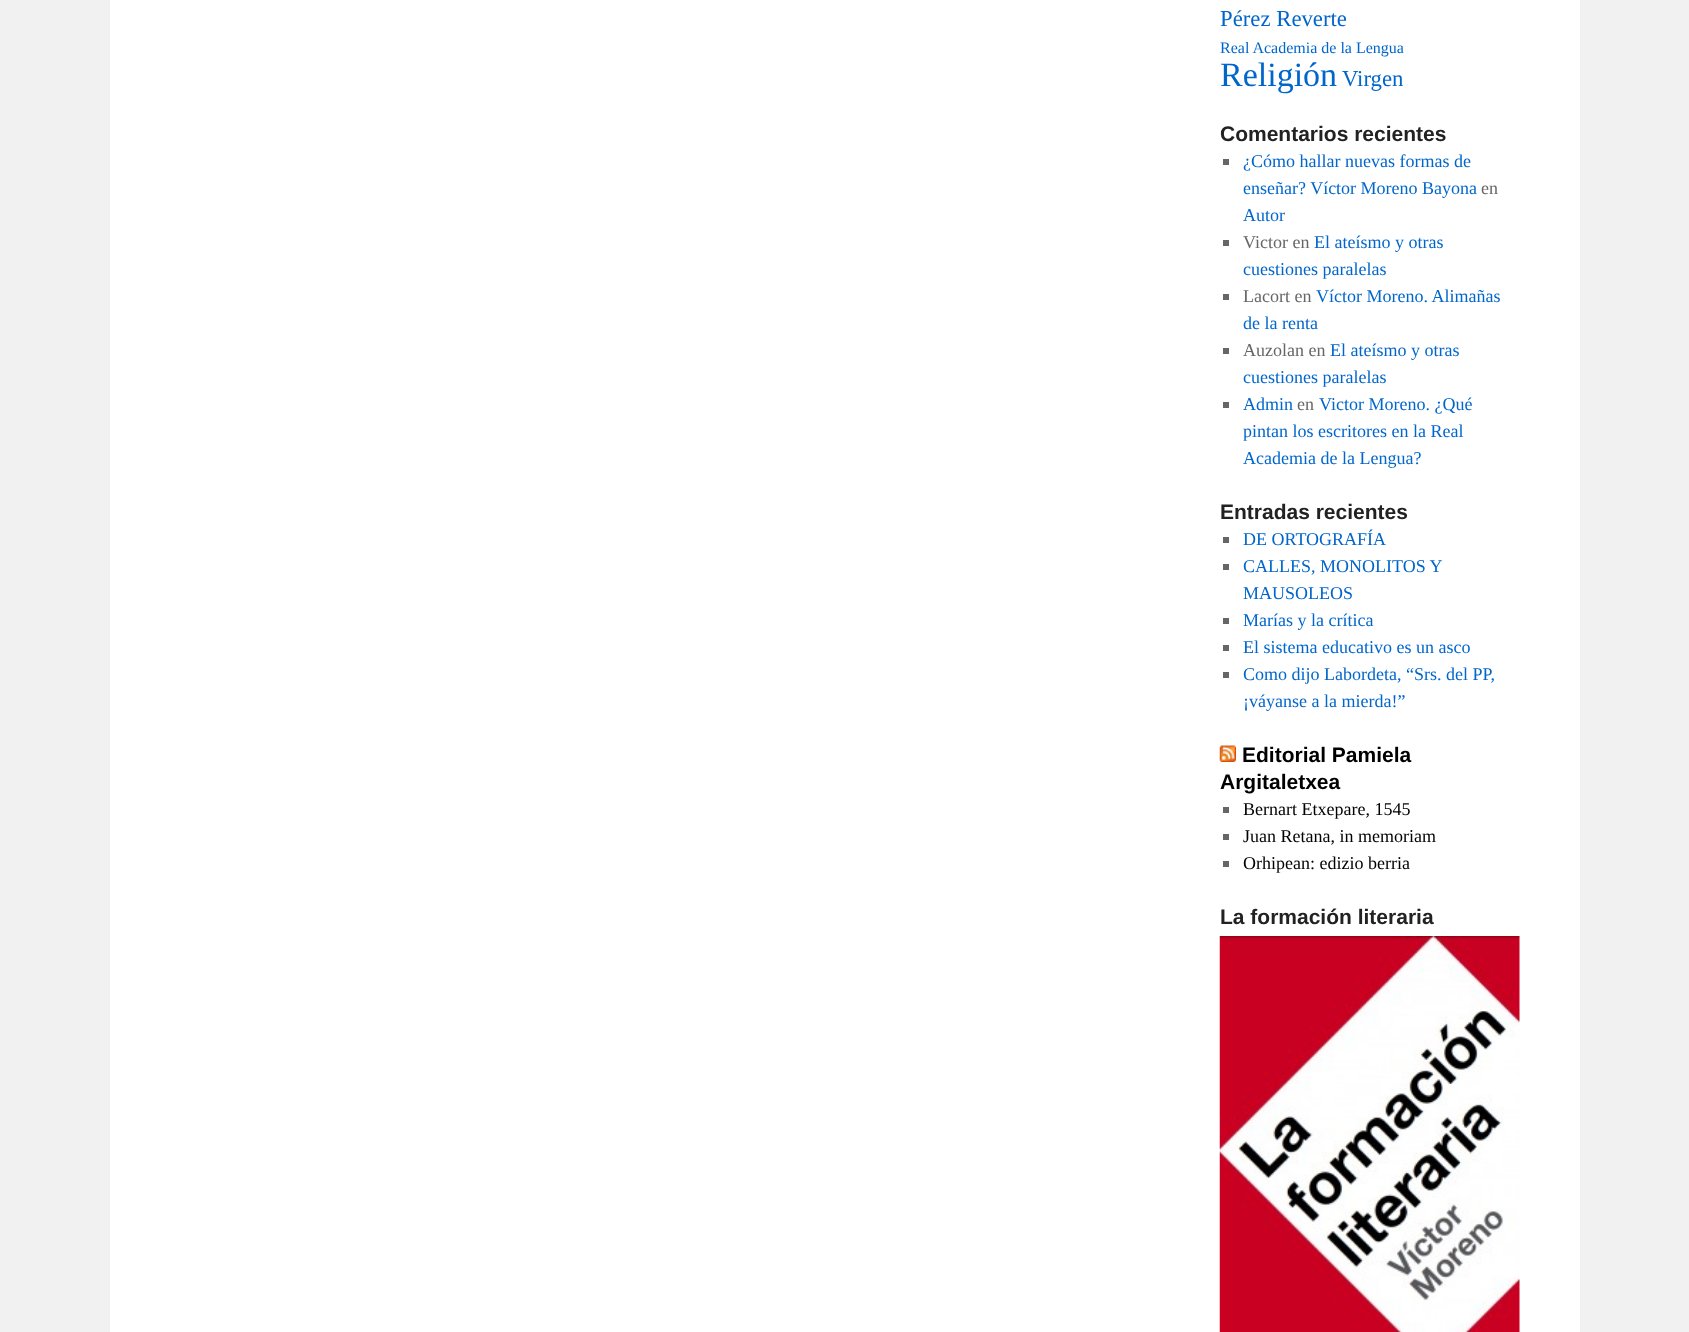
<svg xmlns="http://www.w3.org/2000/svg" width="1689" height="1332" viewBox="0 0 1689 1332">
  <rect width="100%" height="100%" fill="#f1f1f1"/>
  <rect x="110" y="0" width="1470" height="1332" fill="#ffffff"/>
  <text x="1220" y="26" font-family="Liberation Serif" font-size="22.75" fill="#0066cc">Pérez Reverte</text>
  <text x="1220" y="53" font-family="Liberation Serif" font-size="16" fill="#0066cc">Real Academia de la Lengua</text>
  <text x="1220" y="86" font-family="Liberation Serif" font-size="34" fill="#0066cc">Religión</text>
  <text x="1342" y="86" font-family="Liberation Serif" font-size="22.75" fill="#0066cc">Virgen</text>
  <text x="1220" y="141" font-family="Liberation Sans" font-size="21" font-weight="bold" fill="#222222">Comentarios recientes</text>
  <rect x="1223" y="159" width="6" height="6" fill="#666666"/>
  <text x="1243" y="167" font-family="Liberation Serif" font-size="18" fill="#0066cc">¿Cómo hallar nuevas formas de</text>
  <text x="1243" y="194" font-family="Liberation Serif" font-size="18" fill="#0066cc">enseñar? Víctor Moreno Bayona</text>
  <text x="1481" y="194" font-family="Liberation Serif" font-size="18" fill="#666666">en</text>
  <text x="1243" y="221" font-family="Liberation Serif" font-size="18" fill="#0066cc">Autor</text>
  <rect x="1223" y="240" width="6" height="6" fill="#666666"/>
  <text x="1243" y="248" font-family="Liberation Serif" font-size="18" fill="#666666">Victor en</text>
  <text x="1314" y="248" font-family="Liberation Serif" font-size="18" fill="#0066cc">El ateísmo y otras</text>
  <text x="1243" y="275" font-family="Liberation Serif" font-size="18" fill="#0066cc">cuestiones paralelas</text>
  <rect x="1223" y="294" width="6" height="6" fill="#666666"/>
  <text x="1243" y="302" font-family="Liberation Serif" font-size="18" fill="#666666">Lacort en</text>
  <text x="1316" y="302" font-family="Liberation Serif" font-size="18" fill="#0066cc">Víctor Moreno. Alimañas</text>
  <text x="1243" y="329" font-family="Liberation Serif" font-size="18" fill="#0066cc">de la renta</text>
  <rect x="1223" y="348" width="6" height="6" fill="#666666"/>
  <text x="1243" y="356" font-family="Liberation Serif" font-size="18" fill="#666666">Auzolan en</text>
  <text x="1330" y="356" font-family="Liberation Serif" font-size="18" fill="#0066cc">El ateísmo y otras</text>
  <text x="1243" y="383" font-family="Liberation Serif" font-size="18" fill="#0066cc">cuestiones paralelas</text>
  <rect x="1223" y="402" width="6" height="6" fill="#666666"/>
  <text x="1243" y="410" font-family="Liberation Serif" font-size="18" fill="#0066cc">Admin</text>
  <text x="1297" y="410" font-family="Liberation Serif" font-size="18" fill="#666666">en</text>
  <text x="1319" y="410" font-family="Liberation Serif" font-size="18" fill="#0066cc">Victor Moreno. ¿Qué</text>
  <text x="1243" y="437" font-family="Liberation Serif" font-size="18" fill="#0066cc">pintan los escritores en la Real</text>
  <text x="1243" y="464" font-family="Liberation Serif" font-size="18" fill="#0066cc">Academia de la Lengua?</text>
  <text x="1220" y="519" font-family="Liberation Sans" font-size="21" font-weight="bold" fill="#222222">Entradas recientes</text>
  <rect x="1223" y="537" width="6" height="6" fill="#666666"/>
  <text x="1243" y="545" font-family="Liberation Serif" font-size="18" fill="#0066cc">DE ORTOGRAFÍA</text>
  <rect x="1223" y="564" width="6" height="6" fill="#666666"/>
  <text x="1243" y="572" font-family="Liberation Serif" font-size="18" fill="#0066cc">CALLES, MONOLITOS Y</text>
  <text x="1243" y="599" font-family="Liberation Serif" font-size="18" fill="#0066cc">MAUSOLEOS</text>
  <rect x="1223" y="618" width="6" height="6" fill="#666666"/>
  <text x="1243" y="626" font-family="Liberation Serif" font-size="18" fill="#0066cc">Marías y la crítica</text>
  <rect x="1223" y="645" width="6" height="6" fill="#666666"/>
  <text x="1243" y="653" font-family="Liberation Serif" font-size="18" fill="#0066cc">El sistema educativo es un asco</text>
  <rect x="1223" y="672" width="6" height="6" fill="#666666"/>
  <text x="1243" y="680" font-family="Liberation Serif" font-size="18" fill="#0066cc">Como dijo Labordeta, “Srs. del PP,</text>
  <text x="1243" y="707" font-family="Liberation Serif" font-size="18" fill="#0066cc">¡váyanse a la mierda!”</text>
  <image x="1219" y="745" width="17" height="17" href="img1.png"/>
  <text x="1242" y="762" font-family="Liberation Sans" font-size="21" font-weight="bold" fill="#000000">Editorial Pamiela</text>
  <text x="1220" y="789" font-family="Liberation Sans" font-size="21" font-weight="bold" fill="#000000">Argitaletxea</text>
  <rect x="1223" y="807" width="6" height="6" fill="#666666"/>
  <text x="1243" y="815" font-family="Liberation Serif" font-size="18" fill="#000000">Bernart Etxepare, 1545</text>
  <rect x="1223" y="834" width="6" height="6" fill="#666666"/>
  <text x="1243" y="842" font-family="Liberation Serif" font-size="18" fill="#000000">Juan Retana, in memoriam</text>
  <rect x="1223" y="861" width="6" height="6" fill="#666666"/>
  <text x="1243" y="869" font-family="Liberation Serif" font-size="18" fill="#000000">Orhipean: edizio berria</text>
  <text x="1220" y="924" font-family="Liberation Sans" font-size="21" font-weight="bold" fill="#222222">La formación literaria</text>
  <image x="1219" y="936" width="301" height="396" href="img2.png"/>
</svg>
